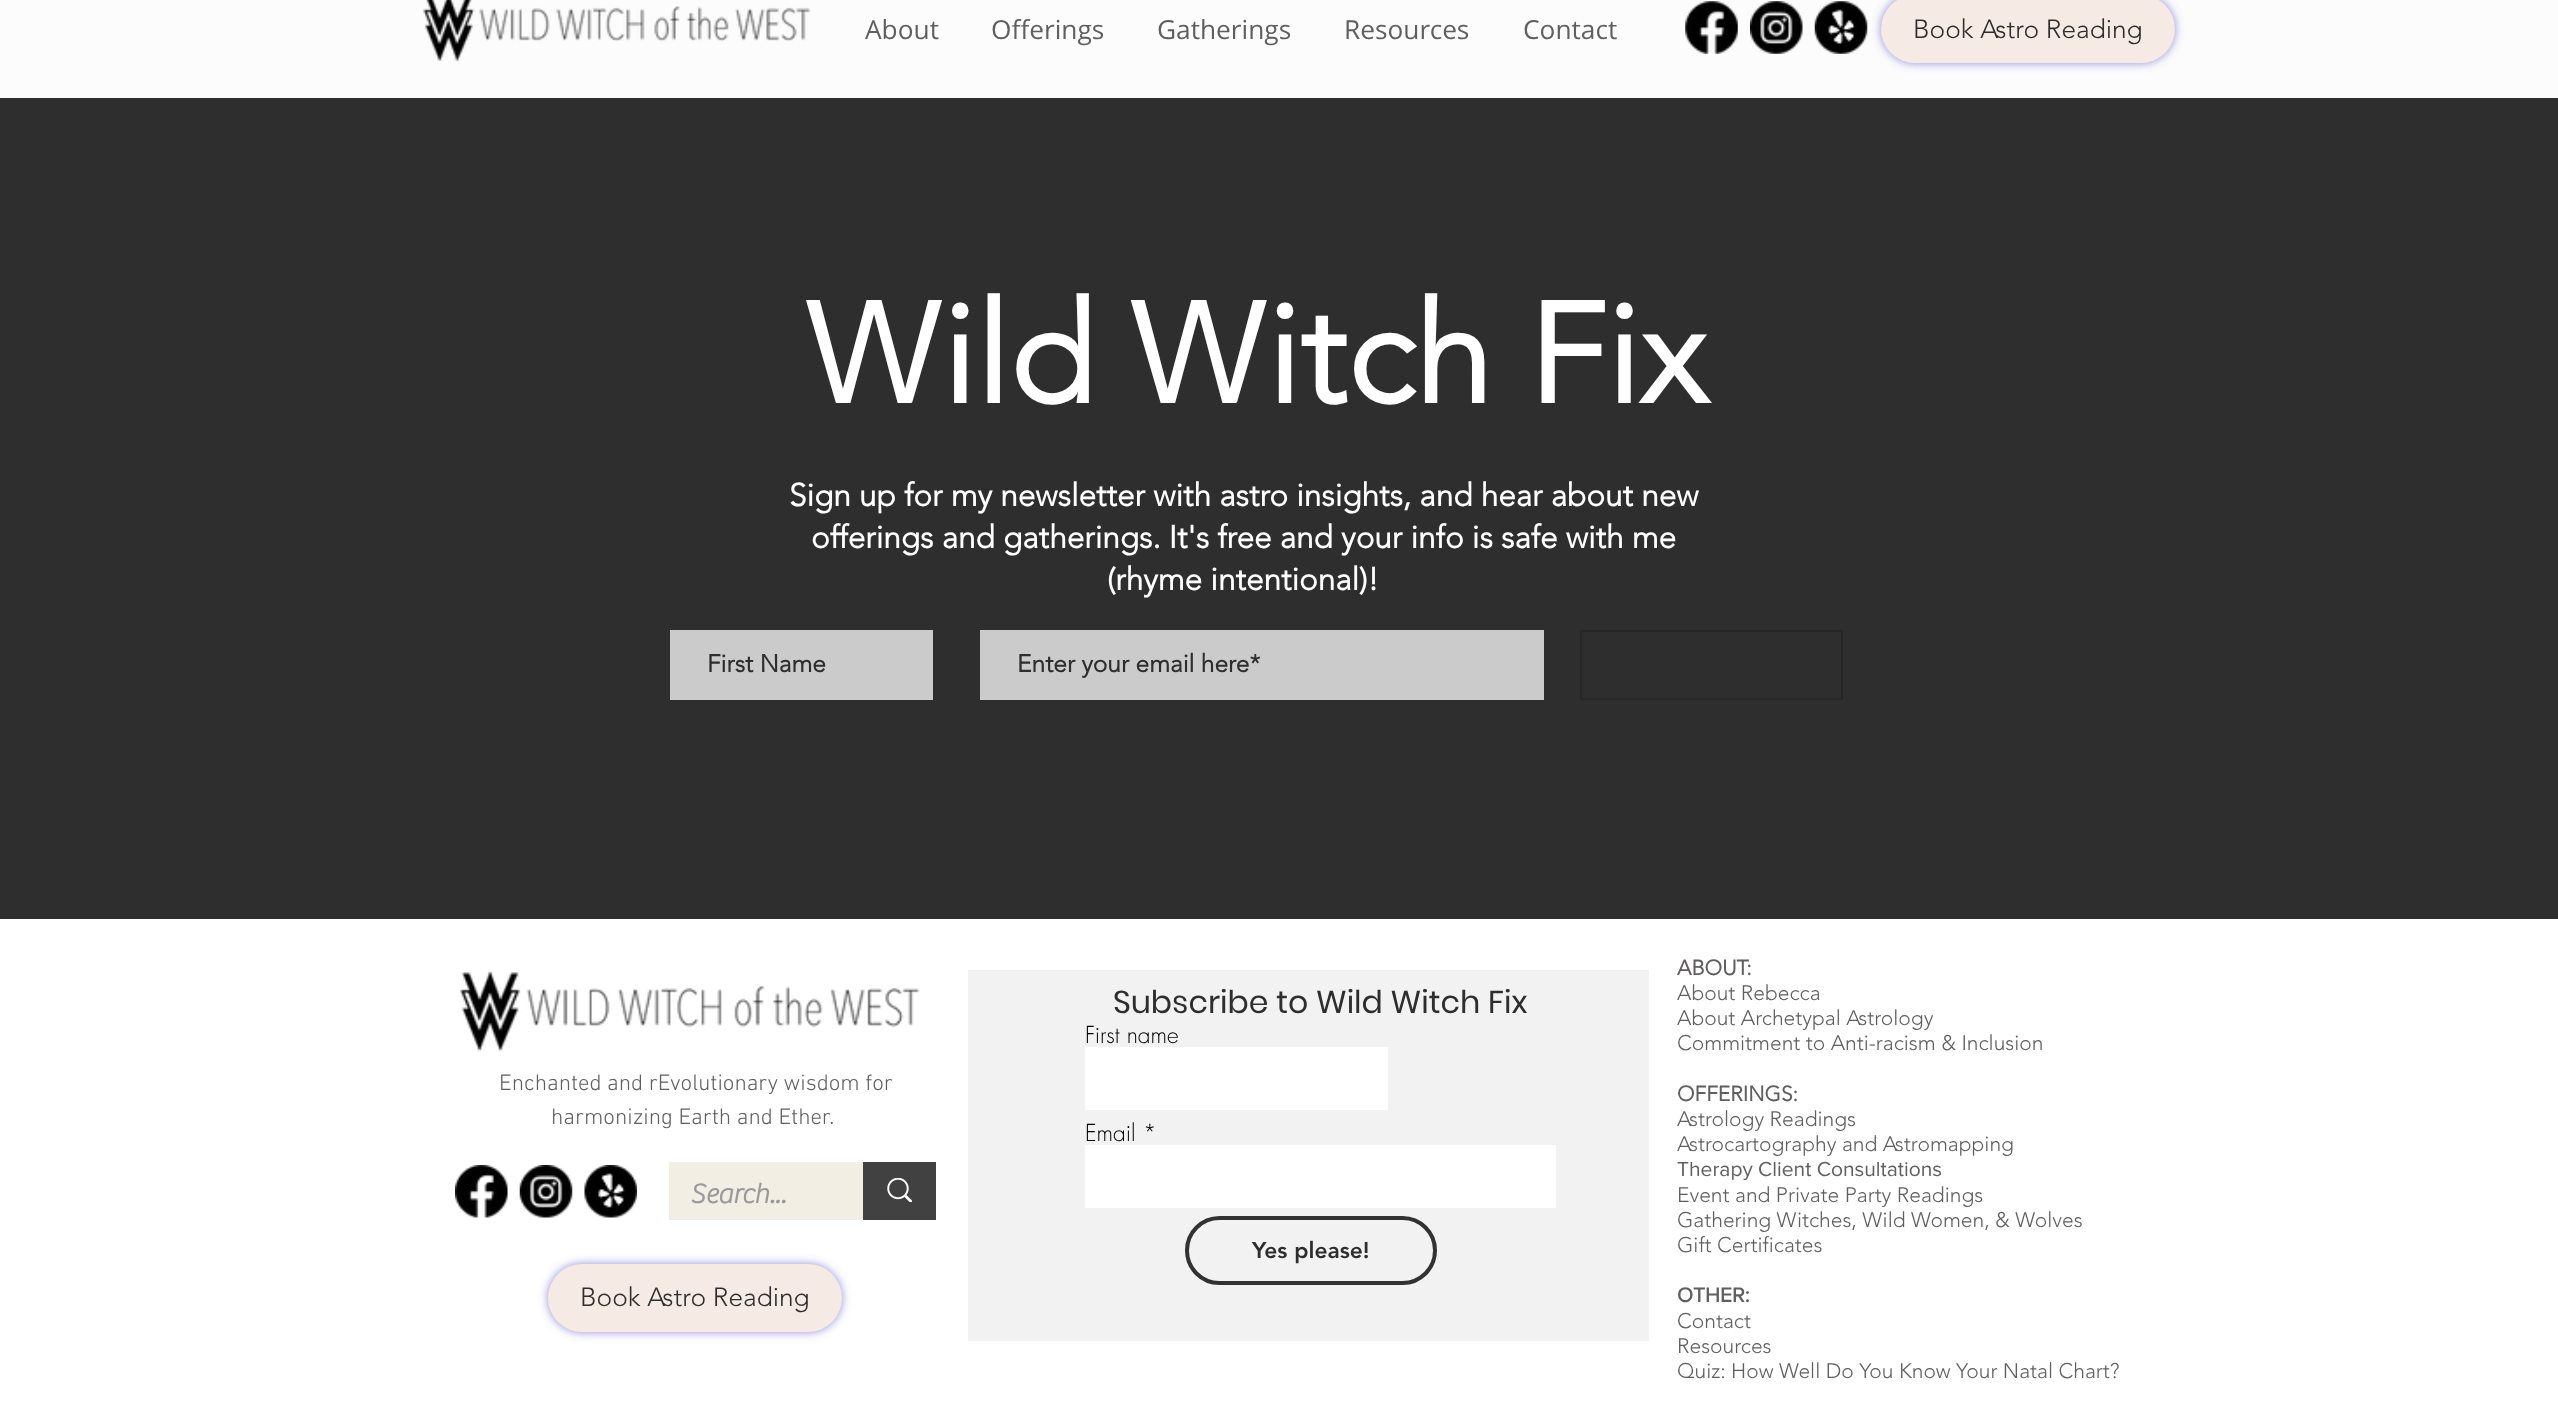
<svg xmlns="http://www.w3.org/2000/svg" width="2558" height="1404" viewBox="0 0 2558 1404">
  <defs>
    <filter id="blur1" x="-50%" y="-200%" width="200%" height="500%"><feGaussianBlur stdDeviation="5"/></filter>
  </defs>
  <rect width="100%" height="100%" fill="#ffffff"/>
  <rect x="0" y="0" width="2558" height="98" fill="#fcfcfc"/>
  <image x="423" y="0" width="388" height="62" href="img1.png"/>
  <text x="865" y="39" font-family="Open Sans" font-size="26.25" fill="#605e5e">About</text>
  <text x="991" y="39" font-family="Open Sans" font-size="26.25" fill="#605e5e">Offerings</text>
  <text x="1157" y="39" font-family="Open Sans" font-size="26.25" fill="#605e5e">Gatherings</text>
  <text x="1344" y="39" font-family="Open Sans" font-size="26.25" fill="#605e5e">Resources</text>
  <text x="1523" y="39" font-family="Open Sans" font-size="26.25" fill="#605e5e">Contact</text>
  <image x="1685" y="1" width="53" height="53" href="img2.png"/>
  <image x="1750" y="1" width="53" height="53" href="img3.png"/>
  <image x="1814" y="1" width="54" height="53" href="img4.png"/>
  <rect x="1881" y="-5" width="294" height="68" rx="34" fill="#5f5bcd" fill-opacity="0.7" filter="url(#blur1)"/>
  <rect x="1881" y="-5" width="294" height="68" rx="34" fill="#f6ebe4"/>
  <text x="1913" y="38" font-family="'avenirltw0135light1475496'" font-size="26.25" font-weight="300" fill="#2f2e2e">Book Astro Reading</text>
  <rect x="0" y="98" width="2558" height="821" fill="#2f2e2e"/>
  <text x="806" y="403" font-family="'avenirltw0135light1475496'" font-size="140" font-weight="bold" fill="#ffffff">Wild Witch Fix</text>
  <text x="789" y="506" font-family="'avenirltw0135light1475496'" font-size="31.5" font-weight="bold" fill="#ffffff">Sign up for my newsletter with astro insights, and hear about new</text>
  <text x="811" y="548" font-family="'avenirltw0135light1475496'" font-size="31.5" font-weight="bold" fill="#ffffff">offerings and gatherings. It's free and your info is safe with me</text>
  <text x="1107" y="590" font-family="'avenirltw0135light1475496'" font-size="31.5" font-weight="bold" fill="#ffffff">(rhyme intentional)!</text>
  <rect x="670" y="630" width="263" height="70" fill="#cbcbcb"/>
  <text x="707" y="672" font-family="'avenirltw0135light1475496'" font-size="24.5" font-weight="bold" fill="#2f2e2e">First Name</text>
  <rect x="980" y="630" width="564" height="70" fill="#cbcbcb"/>
  <text x="1017" y="672" font-family="'avenirltw0135light1475496'" font-size="24.5" font-weight="bold" fill="#2f2e2e">Enter your email here*</text>
  <rect x="1581" y="631" width="261" height="68" rx="1" fill="none" stroke="#282626" stroke-width="2"/>
  <image x="460" y="970" width="460" height="82" href="img5.png"/>
  <rect x="968" y="970" width="681" height="371" fill="#f2f2f2"/>
  <text x="1113" y="1013" font-family="Poppins" font-size="31.5" fill="#2f2e2e">Subscribe to Wild Witch Fix</text>
  <text x="1085" y="1043" font-family="futura" font-size="22.75" font-weight="300" fill="#000000">First name</text>
  <rect x="1085" y="1047" width="303" height="63" fill="#ffffff"/>
  <text x="1085" y="1141" font-family="futura" font-size="22.75" font-weight="300" fill="#000000">Email *</text>
  <rect x="1085" y="1145" width="471" height="63" fill="#ffffff"/>
  <rect x="1187" y="1218" width="248" height="65" rx="32.5" fill="none" stroke="#323232" stroke-width="4"/>
  <text x="1252" y="1258" font-family="'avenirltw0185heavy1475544'" font-size="22.75" font-weight="900" fill="#2f2e2e">Yes please!</text>
  <text x="1677" y="975" font-family="'avenirltw0135light1475496'" font-size="21" font-weight="bold" fill="#605e5e">ABOUT:</text>
  <text x="1677" y="1000" font-family="'avenirltw0135light1475496'" font-size="21" font-weight="300" fill="#605e5e">About Rebecca</text>
  <text x="1677" y="1025" font-family="'avenirltw0135light1475496'" font-size="21" font-weight="300" fill="#605e5e">About Archetypal Astrology</text>
  <text x="1677" y="1050" font-family="'avenirltw0135light1475496'" font-size="21" font-weight="300" fill="#605e5e">Commitment to Anti-racism &amp; Inclusion</text>
  <text x="1677" y="1101" font-family="'avenirltw0135light1475496'" font-size="21" font-weight="bold" fill="#605e5e">OFFERINGS:</text>
  <text x="1677" y="1126" font-family="'avenirltw0135light1475496'" font-size="21" font-weight="300" fill="#605e5e">Astrology Readings</text>
  <text x="1677" y="1151" font-family="'avenirltw0135light1475496'" font-size="21" font-weight="300" fill="#605e5e">Astrocartography and Astromapping</text>
  <text x="1677" y="1176" font-family="'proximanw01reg'" font-size="21" fill="#605e5e">Therapy Client Consultations</text>
  <text x="1677" y="1202" font-family="'avenirltw0135light1475496'" font-size="21" font-weight="300" fill="#605e5e">Event and Private Party Readings</text>
  <text x="1677" y="1227" font-family="'avenirltw0135light1475496'" font-size="21" font-weight="300" fill="#605e5e">Gathering Witches, Wild Women, &amp; Wolves</text>
  <text x="1677" y="1252" font-family="'avenirltw0135light1475496'" font-size="21" font-weight="300" fill="#605e5e">Gift Certificates</text>
  <text x="1677" y="1302" font-family="'proximanw01reg'" font-size="21" font-weight="bold" fill="#605e5e">OTHER:</text>
  <text x="1677" y="1328" font-family="'avenirltw0135light1475496'" font-size="21" font-weight="300" fill="#605e5e">Contact</text>
  <text x="1677" y="1353" font-family="'avenirltw0135light1475496'" font-size="21" font-weight="300" fill="#605e5e">Resources</text>
  <text x="1677" y="1378" font-family="'avenirltw0135light1475496'" font-size="21" font-weight="300" fill="#605e5e">Quiz: How Well Do You Know Your Natal Chart?</text>
  <text x="499" y="1090" font-family="'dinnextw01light'" font-size="22.75" font-weight="300" fill="#605e5e">Enchanted and rEvolutionary wisdom for</text>
  <text x="551" y="1124" font-family="'dinnextw01light'" font-size="22.75" font-weight="300" fill="#605e5e">harmonizing Earth and Ether.</text>
  <image x="455" y="1165" width="53" height="53" href="img6.png"/>
  <image x="519" y="1165" width="54" height="53" href="img7.png"/>
  <image x="584" y="1165" width="53" height="53" href="img8.png"/>
  <rect x="669" y="1162" width="194" height="58" fill="#f2eee4"/>
  <text x="690" y="1203" font-family="'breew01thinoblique'" font-size="28" font-weight="bold" fill="#999999">Search...</text>
  <rect x="863" y="1162" width="73" height="58" fill="#414141"/>
  <image x="887" y="1178" width="25" height="24" href="img9.png"/>
  <rect x="548" y="1264" width="294" height="68" rx="34" fill="#5f5bcd" fill-opacity="0.7" filter="url(#blur1)"/>
  <rect x="548" y="1264" width="294" height="68" rx="34" fill="#f6ebe4"/>
  <text x="580" y="1306" font-family="'avenirltw0135light1475496'" font-size="26.25" font-weight="300" fill="#2f2e2e">Book Astro Reading</text>
</svg>
